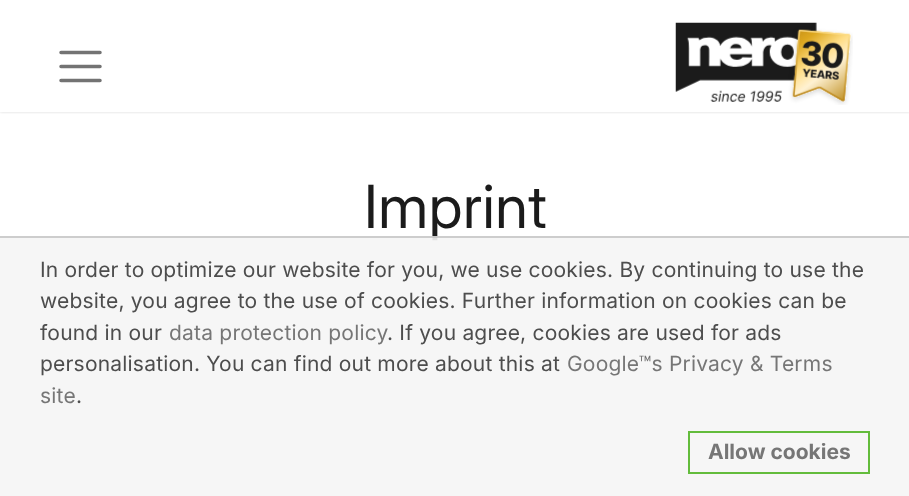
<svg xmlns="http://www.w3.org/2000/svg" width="909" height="496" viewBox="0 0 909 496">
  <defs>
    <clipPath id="clip1"><rect x="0" y="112" width="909" height="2"/></clipPath>
    <filter id="blur1" x="-50%" y="-200%" width="200%" height="500%"><feGaussianBlur stdDeviation="1.5"/></filter>
  </defs>
  <rect width="100%" height="100%" fill="#ffffff"/>
  <g clip-path="url(#clip1)">
    <rect x="0" y="0" width="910" height="112" fill="#808080" fill-opacity="0.31" filter="url(#blur1)"/>
  </g>
  <path d="M61 52.5H100M61 66.5H100M61 80.5H100" fill="none" stroke="#737373" stroke-width="3.5" stroke-linecap="round"/>
  <image x="675" y="22" width="178" height="83" href="img1.png"/>
  <text x="364" y="228" font-family="Inter" font-size="59.5" letter-spacing="0.5" fill="#1b1b1b">Imprint</text>
  <rect x="0" y="236" width="909" height="260" fill="#f5f5f5" fill-opacity="0.9"/>
  <rect x="0" y="236" width="909" height="2" fill="#bcbcbc" fill-opacity="0.7"/>
  <text x="40" y="277" font-family="'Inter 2'" font-size="21" letter-spacing="0.2" fill="#4d4d4d">In order to optimize our website for you, we use cookies. By continuing to use the</text>
  <text x="40" y="308" font-family="'Inter 2'" font-size="21" letter-spacing="0.2" fill="#4d4d4d">website, you agree to the use of cookies. Further information on cookies can be</text>
  <text x="40" y="340" font-family="'Inter 2'" font-size="21" letter-spacing="0.2" fill="#4d4d4d">found in our</text>
  <text x="169" y="340" font-family="'Inter 2'" font-size="21" letter-spacing="0.2" fill="#767676">data protection policy</text>
  <text x="387" y="340" font-family="'Inter 2'" font-size="21" letter-spacing="0.2" fill="#4d4d4d">. If you agree, cookies are used for ads</text>
  <text x="40" y="371" font-family="'Inter 2'" font-size="21" letter-spacing="0.2" fill="#4d4d4d">personalisation. You can find out more about this at</text>
  <text x="567" y="371" font-family="'Inter 2'" font-size="21" letter-spacing="0.2" fill="#767676">Google™s Privacy &amp; Terms</text>
  <text x="40" y="403" font-family="'Inter 2'" font-size="21" letter-spacing="0.2" fill="#767676">site</text>
  <text x="76" y="403" font-family="'Inter 2'" font-size="21" letter-spacing="0.2" fill="#4d4d4d">.</text>
  <rect x="689" y="432" width="180" height="41" fill="none" stroke="#63bc3c" stroke-width="2"/>
  <text x="708" y="459" font-family="Inter" font-size="21" font-weight="bold" fill="#767676">Allow cookies</text>
</svg>
